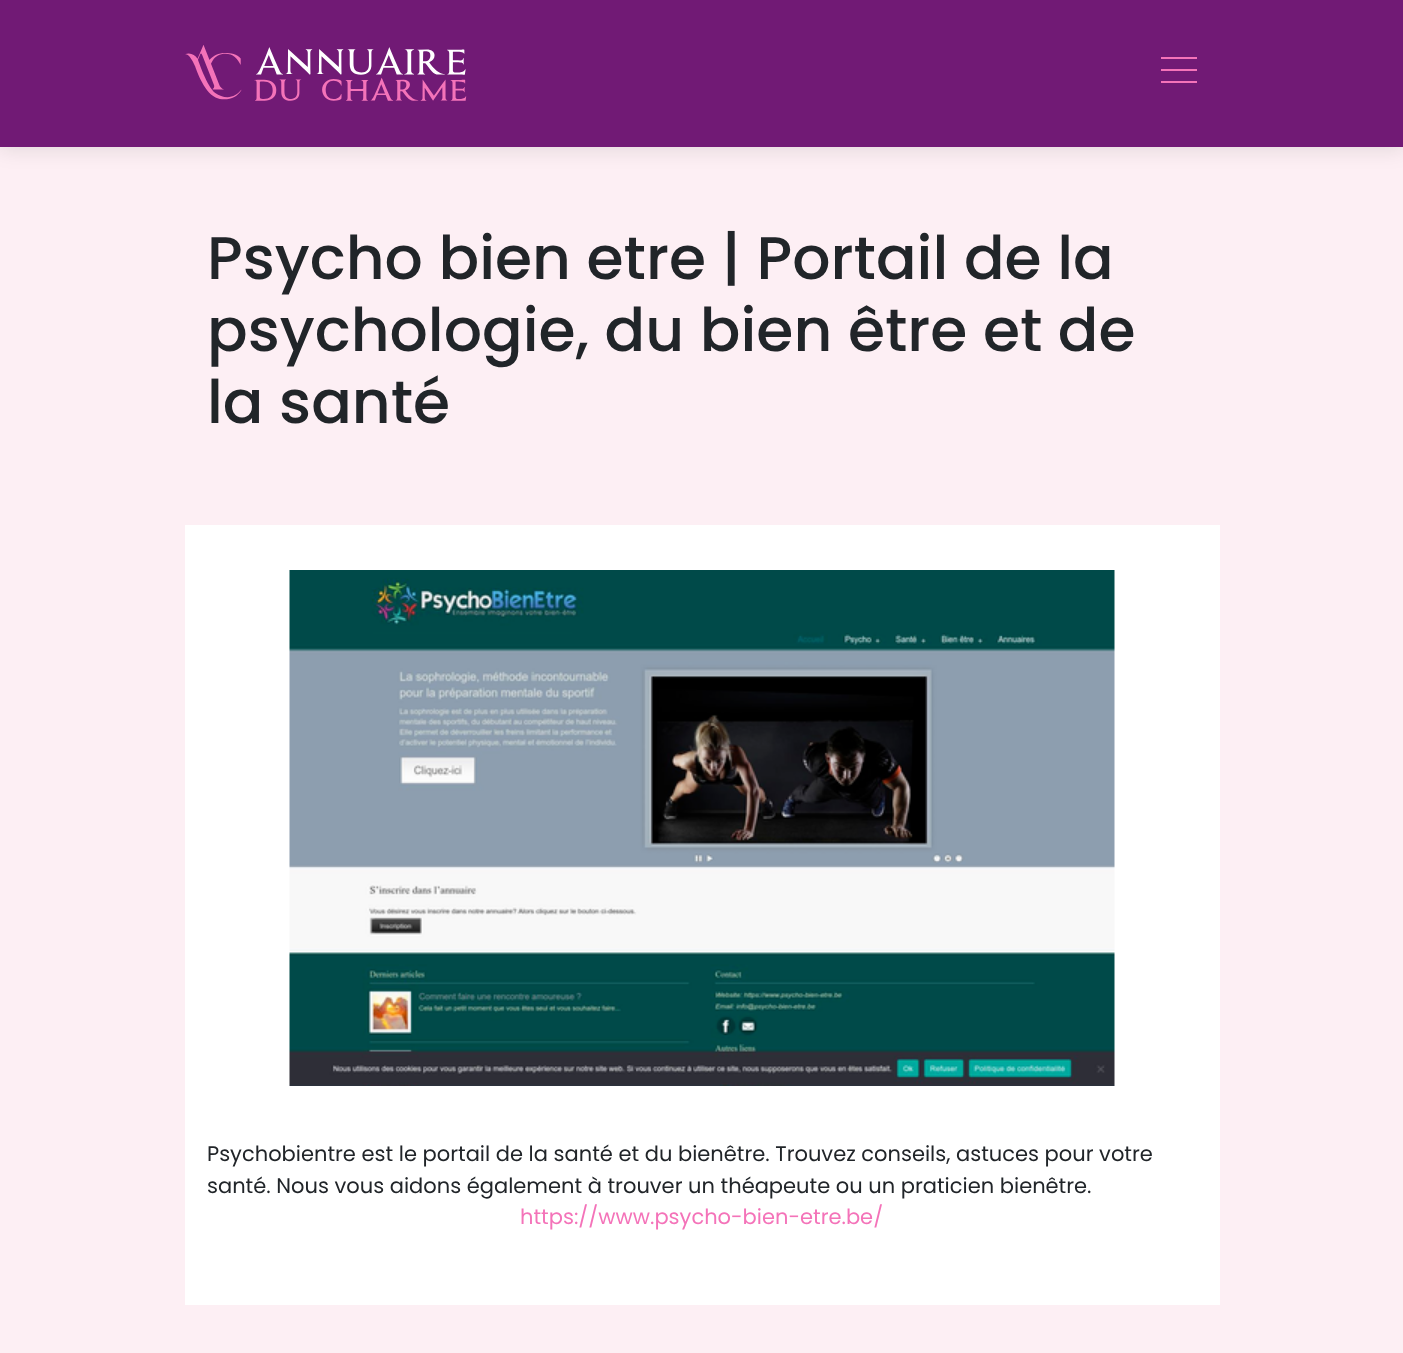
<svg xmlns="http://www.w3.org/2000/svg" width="1403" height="1353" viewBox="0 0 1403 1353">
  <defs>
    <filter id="blur1" x="-50%" y="-200%" width="200%" height="500%"><feGaussianBlur stdDeviation="10"/></filter>
  </defs>
  <rect width="100%" height="100%" fill="#fdeff4"/>
  <rect x="0" y="3" width="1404" height="147" fill="#000000" fill-opacity="0.1" filter="url(#blur1)"/>
  <rect x="0" y="0" width="1403" height="147" fill="#711a75"/>
  <image x="185" y="45" width="282" height="56" href="img1.png"/>
  <rect x="1161" y="57" width="36" height="2" fill="#f473b9"/>
  <rect x="1161" y="69" width="36" height="2" fill="#f473b9"/>
  <rect x="1161" y="81" width="36" height="2" fill="#f473b9"/>
  <text x="207" y="279" font-family="Poppins" font-size="60" font-weight="500" fill="#212529">Psycho bien etre | Portail de la</text>
  <text x="207" y="351" font-family="Poppins" font-size="60" font-weight="500" fill="#212529">psychologie, du bien être et de</text>
  <text x="207" y="423" font-family="Poppins" font-size="60" font-weight="500" fill="#212529">la santé</text>
  <rect x="185" y="525" width="1035" height="780" fill="#ffffff"/>
  <image x="289" y="570" width="826" height="516" href="img2.png"/>
  <text x="207" y="1161" font-family="Poppins" font-size="21" fill="#212529">Psychobientre est le portail de la santé et du bienêtre. Trouvez conseils, astuces pour votre</text>
  <text x="207" y="1193" font-family="Poppins" font-size="21" fill="#212529">santé. Nous vous aidons également à trouver un théapeute ou un praticien bienêtre.</text>
  <text x="520" y="1224" font-family="Poppins" font-size="21" fill="#f473b9">https://www.psycho-bien-etre.be/</text>
</svg>
